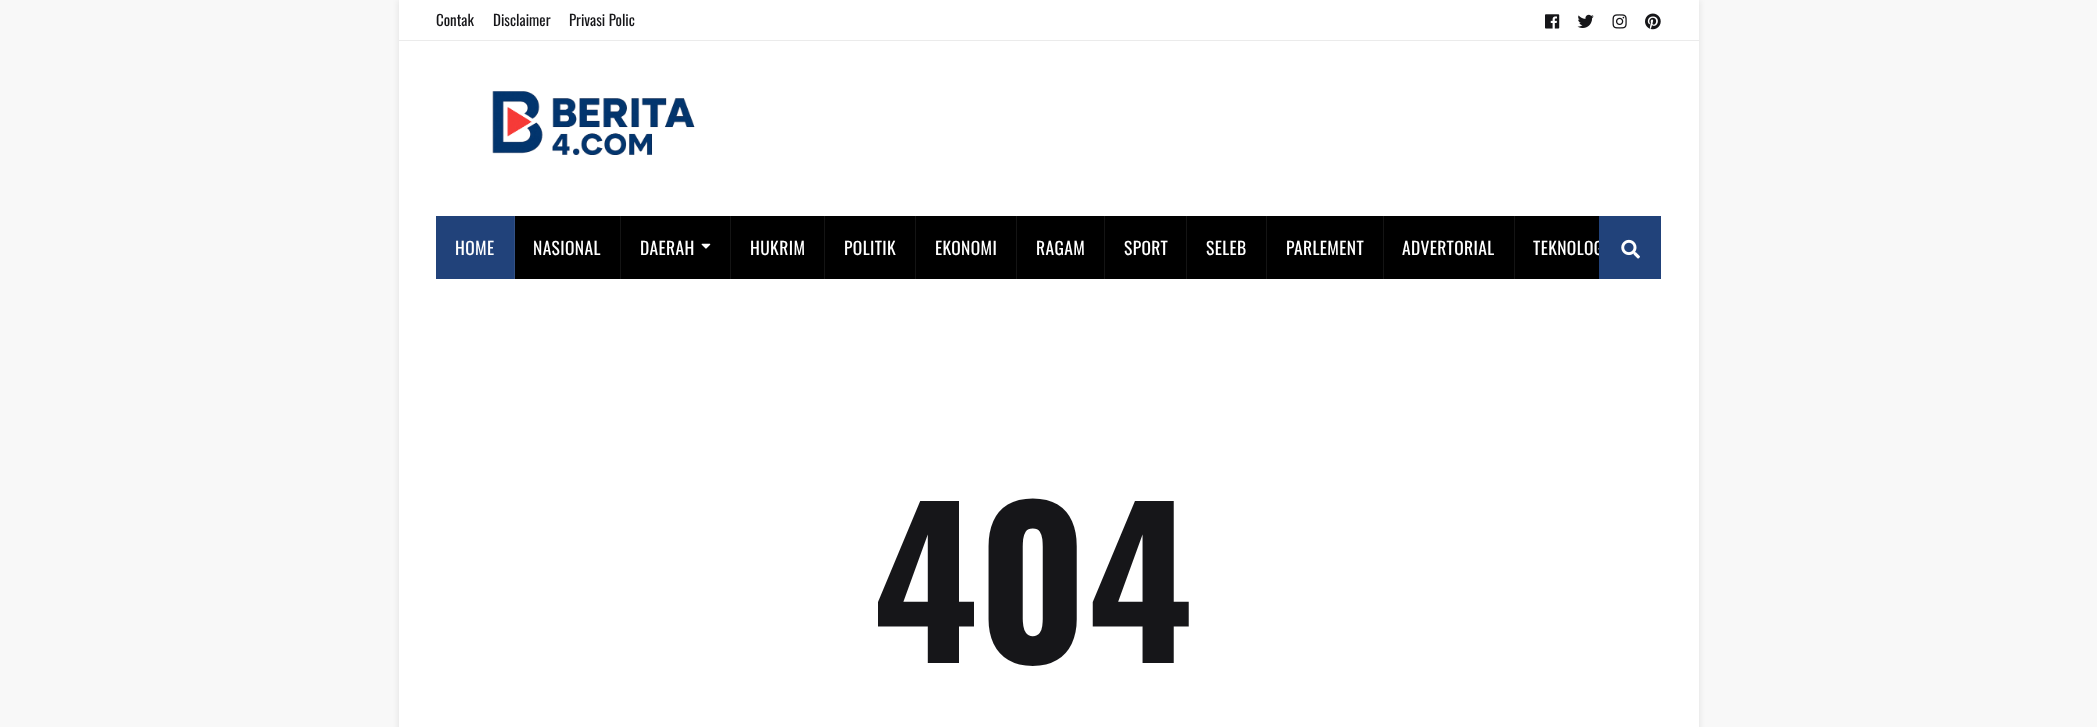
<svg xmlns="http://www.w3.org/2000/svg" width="2097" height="727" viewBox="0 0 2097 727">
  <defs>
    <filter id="blur1" x="-50%" y="-200%" width="200%" height="500%"><feGaussianBlur stdDeviation="3"/></filter>
  </defs>
  <rect width="100%" height="100%" fill="#f8f8f8"/>
  <rect x="399" y="0" width="1300" height="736" fill="#323232" fill-opacity="0.1" filter="url(#blur1)"/>
  <rect x="399" y="0" width="1300" height="727" fill="#ffffff"/>
  <rect x="399" y="40" width="1300" height="1" fill="#ebebeb"/>
  <text x="436" y="26" font-family="Oswald" font-size="15" fill="#161619">Contak</text>
  <text x="493" y="26" font-family="Oswald" font-size="15" fill="#161619">Disclaimer</text>
  <text x="569" y="26" font-family="Oswald" font-size="15" fill="#161619">Privasi Polic</text>
  <image x="1545" y="14" width="15" height="15" href="img1.png"/>
  <image x="1577" y="14" width="17" height="14" href="img2.png"/>
  <image x="1612" y="14" width="15" height="15" href="img3.png"/>
  <image x="1645" y="13" width="16" height="17" href="img4.png"/>
  <image x="492" y="91" width="203" height="64" href="img5.png"/>
  <rect x="515" y="216" width="1084" height="63" fill="#000000"/>
  <rect x="436" y="216" width="78" height="63" fill="#21427a"/>
  <rect x="514" y="216" width="1" height="63" fill="#335185"/>
  <text x="455" y="255" font-family="Oswald" font-size="17.5" letter-spacing="0.4" fill="#ffffff">HOME</text>
  <rect x="620" y="216" width="1" height="63" fill="#141414"/>
  <text x="533" y="255" font-family="Oswald" font-size="17.5" letter-spacing="0.4" fill="#ffffff">NASIONAL</text>
  <rect x="730" y="216" width="1" height="63" fill="#141414"/>
  <text x="640" y="255" font-family="Oswald" font-size="17.5" letter-spacing="0.4" fill="#ffffff">DAERAH</text>
  <image x="701" y="243" width="10" height="6" href="img6.png"/>
  <rect x="824" y="216" width="1" height="63" fill="#141414"/>
  <text x="750" y="255" font-family="Oswald" font-size="17.5" letter-spacing="0.4" fill="#ffffff">HUKRIM</text>
  <rect x="915" y="216" width="1" height="63" fill="#141414"/>
  <text x="844" y="255" font-family="Oswald" font-size="17.5" letter-spacing="0.4" fill="#ffffff">POLITIK</text>
  <rect x="1016" y="216" width="1" height="63" fill="#141414"/>
  <text x="935" y="255" font-family="Oswald" font-size="17.5" letter-spacing="0.4" fill="#ffffff">EKONOMI</text>
  <rect x="1104" y="216" width="1" height="63" fill="#141414"/>
  <text x="1036" y="255" font-family="Oswald" font-size="17.5" letter-spacing="0.4" fill="#ffffff">RAGAM</text>
  <rect x="1186" y="216" width="1" height="63" fill="#141414"/>
  <text x="1124" y="255" font-family="Oswald" font-size="17.5" letter-spacing="0.4" fill="#ffffff">SPORT</text>
  <rect x="1266" y="216" width="1" height="63" fill="#141414"/>
  <text x="1206" y="255" font-family="Oswald" font-size="17.5" letter-spacing="0.4" fill="#ffffff">SELEB</text>
  <rect x="1383" y="216" width="1" height="63" fill="#141414"/>
  <text x="1286" y="255" font-family="Oswald" font-size="17.5" letter-spacing="0.4" fill="#ffffff">PARLEMENT</text>
  <rect x="1514" y="216" width="1" height="63" fill="#141414"/>
  <text x="1402" y="255" font-family="Oswald" font-size="17.5" letter-spacing="0.4" fill="#ffffff">ADVERTORIAL</text>
  <text x="1533" y="255" font-family="Oswald" font-size="17.5" letter-spacing="0.4" fill="#ffffff">TEKNOLOG</text>
  <rect x="1599" y="216" width="62" height="63" fill="#21427a"/>
  <image x="1621" y="239" width="19" height="20" href="img7.png"/>
  <text x="873" y="663" font-family="Oswald" font-size="200" font-weight="bold" fill="#161619">404</text>
</svg>
